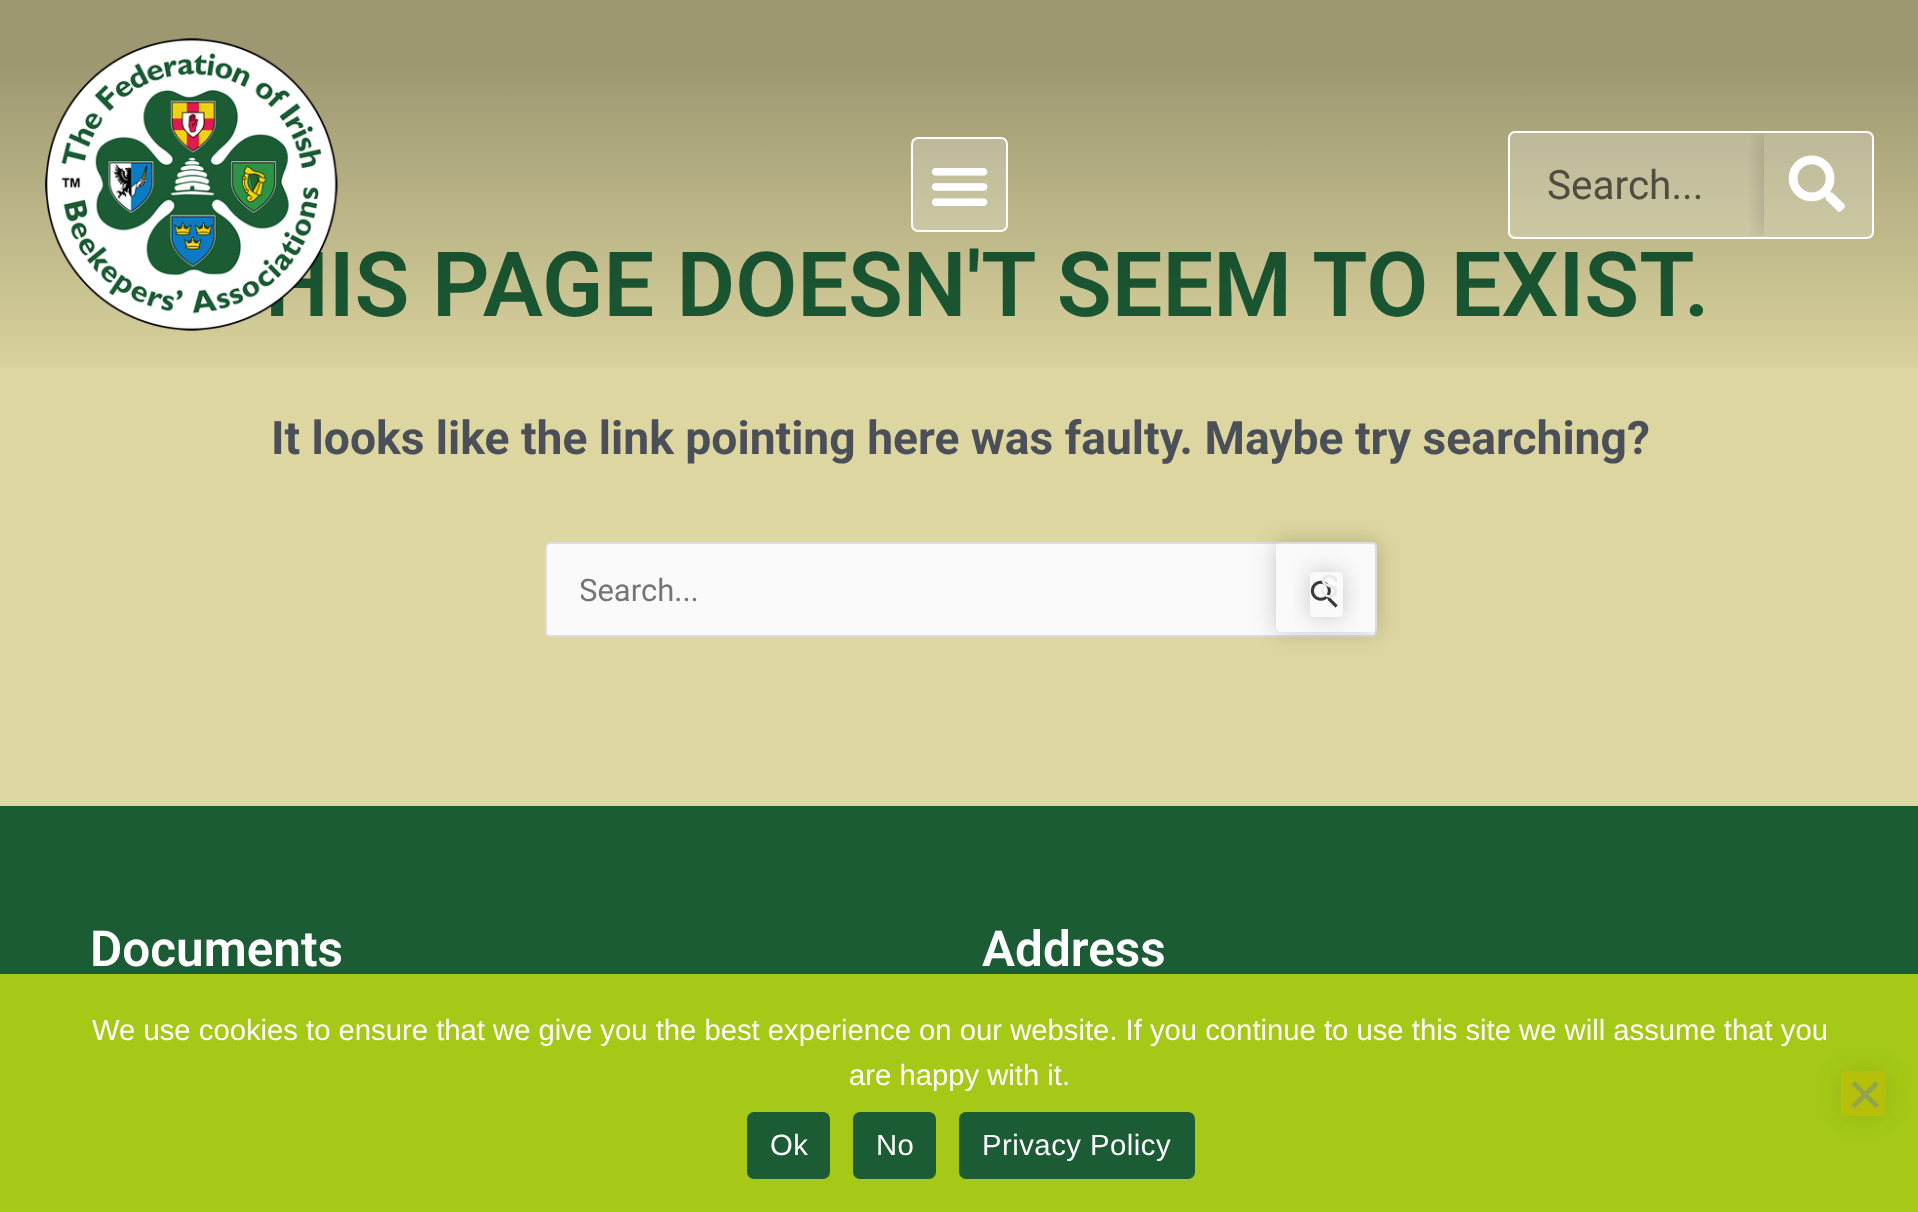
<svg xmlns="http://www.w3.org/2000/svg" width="1918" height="1212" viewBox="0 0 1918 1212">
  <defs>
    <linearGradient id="g1" gradientUnits="userSpaceOnUse" x1="960" y1="0" x2="960" y2="392"><stop offset="0.16" stop-color="#000000" stop-opacity="0.29"/><stop offset="1" stop-color="#000000" stop-opacity="0"/></linearGradient>
    <clipPath id="clip1"><rect x="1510" y="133" width="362" height="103" rx="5"/></clipPath>
    <clipPath id="clip2"><rect x="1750" y="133" width="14" height="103"/></clipPath>
    <filter id="blur1" x="-50%" y="-200%" width="200%" height="500%"><feGaussianBlur stdDeviation="11"/></filter>
    <clipPath id="clip3"><rect x="581" y="572" width="684" height="36"/></clipPath>
    <clipPath id="clip4"><path d="M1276 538H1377V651H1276ZM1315 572H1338C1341 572 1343 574 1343 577V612C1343 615 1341 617 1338 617H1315C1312 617 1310 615 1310 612V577C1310 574 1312 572 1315 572Z" clip-rule="evenodd"/></clipPath>
    <clipPath id="clip5"><path d="M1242 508H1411V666H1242ZM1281 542H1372C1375 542 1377 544 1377 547V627C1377 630 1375 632 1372 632H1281C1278 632 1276 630 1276 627V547C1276 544 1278 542 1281 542Z" clip-rule="evenodd"/></clipPath>
  </defs>
  <rect width="100%" height="100%" fill="#ddd6a0"/>
  <text x="265" y="316" font-family="Roboto" font-size="90" font-weight="600" fill="#1c5c35">HIS PAGE DOESN'T SEEM TO EXIST.</text>
  <rect x="0" y="0" width="1918" height="368" fill="url(#g1)"/>
  <image x="45" y="38" width="293" height="293" href="img1.png"/>
  <rect x="912" y="138" width="95" height="93" rx="6" fill="#ffffff" fill-opacity="0.22" stroke="#ffffff" stroke-width="2"/>
  <image x="931" y="168" width="57" height="38" href="img2.png"/>
  <rect x="1509" y="132" width="364" height="106" rx="6" fill="#ffffff" fill-opacity="0.22" stroke="#ffffff" stroke-width="2"/>
  <text x="1547" y="199" font-family="Roboto" font-size="40.5" fill="#4f4d3f">Search...</text>
  <g clip-path="url(#clip1)">
    <g clip-path="url(#clip2)">
      <rect x="1764" y="133" width="108" height="103" fill="#000000" fill-opacity="0.2" filter="url(#blur1)"/>
    </g>
  </g>
  <image x="1788" y="155" width="57" height="57" href="img3.png"/>
  <text x="271" y="454" font-family="Roboto" font-size="46.2" font-weight="bold" fill="#4b4f58">It looks like the link pointing here was faulty. Maybe try searching?</text>
  <rect x="546" y="543" width="830" height="93" rx="4" fill="#fafafa" stroke="#dddddd" stroke-width="2"/>
  <g clip-path="url(#clip3)">
    <text x="579" y="601" font-family="Roboto" font-size="31" fill="#757575">Search...</text>
  </g>
  <g clip-path="url(#clip4)">
    <rect x="1310" y="572" width="33" height="45" rx="5" fill="#000000" fill-opacity="0.2" filter="url(#blur1)"/>
  </g>
  <image x="1310" y="580" width="28" height="28" href="img4.png"/>
  <g clip-path="url(#clip5)">
    <rect x="1276" y="542" width="101" height="90" rx="5" fill="#000000" fill-opacity="0.2" filter="url(#blur1)"/>
  </g>
  <text x="1320" y="597" font-family="Roboto" font-size="31" fill="#e8e8e8">S</text>
  <rect x="0" y="806" width="1918" height="168" fill="#1c5c35"/>
  <text x="90" y="966" font-family="Roboto" font-size="49.5" font-weight="600" fill="#ffffff">Documents</text>
  <text x="982" y="966" font-family="Roboto" font-size="49.5" font-weight="600" fill="#ffffff">Address</text>
  <rect x="0" y="974" width="1918" height="238" fill="#a5c916"/>
  <text x="92" y="1040" font-family="Liberation Sans" font-size="29.25" fill="#ffffff">We use cookies to ensure that we give you the best experience on our website. If you continue to use this site we will assume that you</text>
  <text x="849" y="1085" font-family="Liberation Sans" font-size="29.25" fill="#ffffff">are happy with it.</text>
  <rect x="1841" y="1071" width="45" height="45" rx="5" fill="#53650b" fill-opacity="0.2" filter="url(#blur1)"/>
  <rect x="1841" y="1071" width="45" height="45" rx="5" fill="#b6c00b"/>
  <path d="M1875.5 1081L1879 1084.5L1855 1108L1851.5 1105Z" fill="#93a54b"/>
  <path d="M1851.5 1084.5L1855 1081L1879 1105L1875.5 1108Z" fill="#93a54b"/>
  <rect x="747" y="1112" width="83" height="67" rx="7" fill="#1c5c35"/>
  <text x="770" y="1155" font-family="Liberation Sans" font-size="29.25" letter-spacing="0.5" fill="#ffffff">Ok</text>
  <rect x="853" y="1112" width="83" height="67" rx="7" fill="#1c5c35"/>
  <text x="876" y="1155" font-family="Liberation Sans" font-size="29.25" letter-spacing="0.5" fill="#ffffff">No</text>
  <rect x="959" y="1112" width="236" height="67" rx="7" fill="#1c5c35"/>
  <text x="982" y="1155" font-family="Liberation Sans" font-size="29.25" letter-spacing="0.5" fill="#ffffff">Privacy Policy</text>
</svg>
